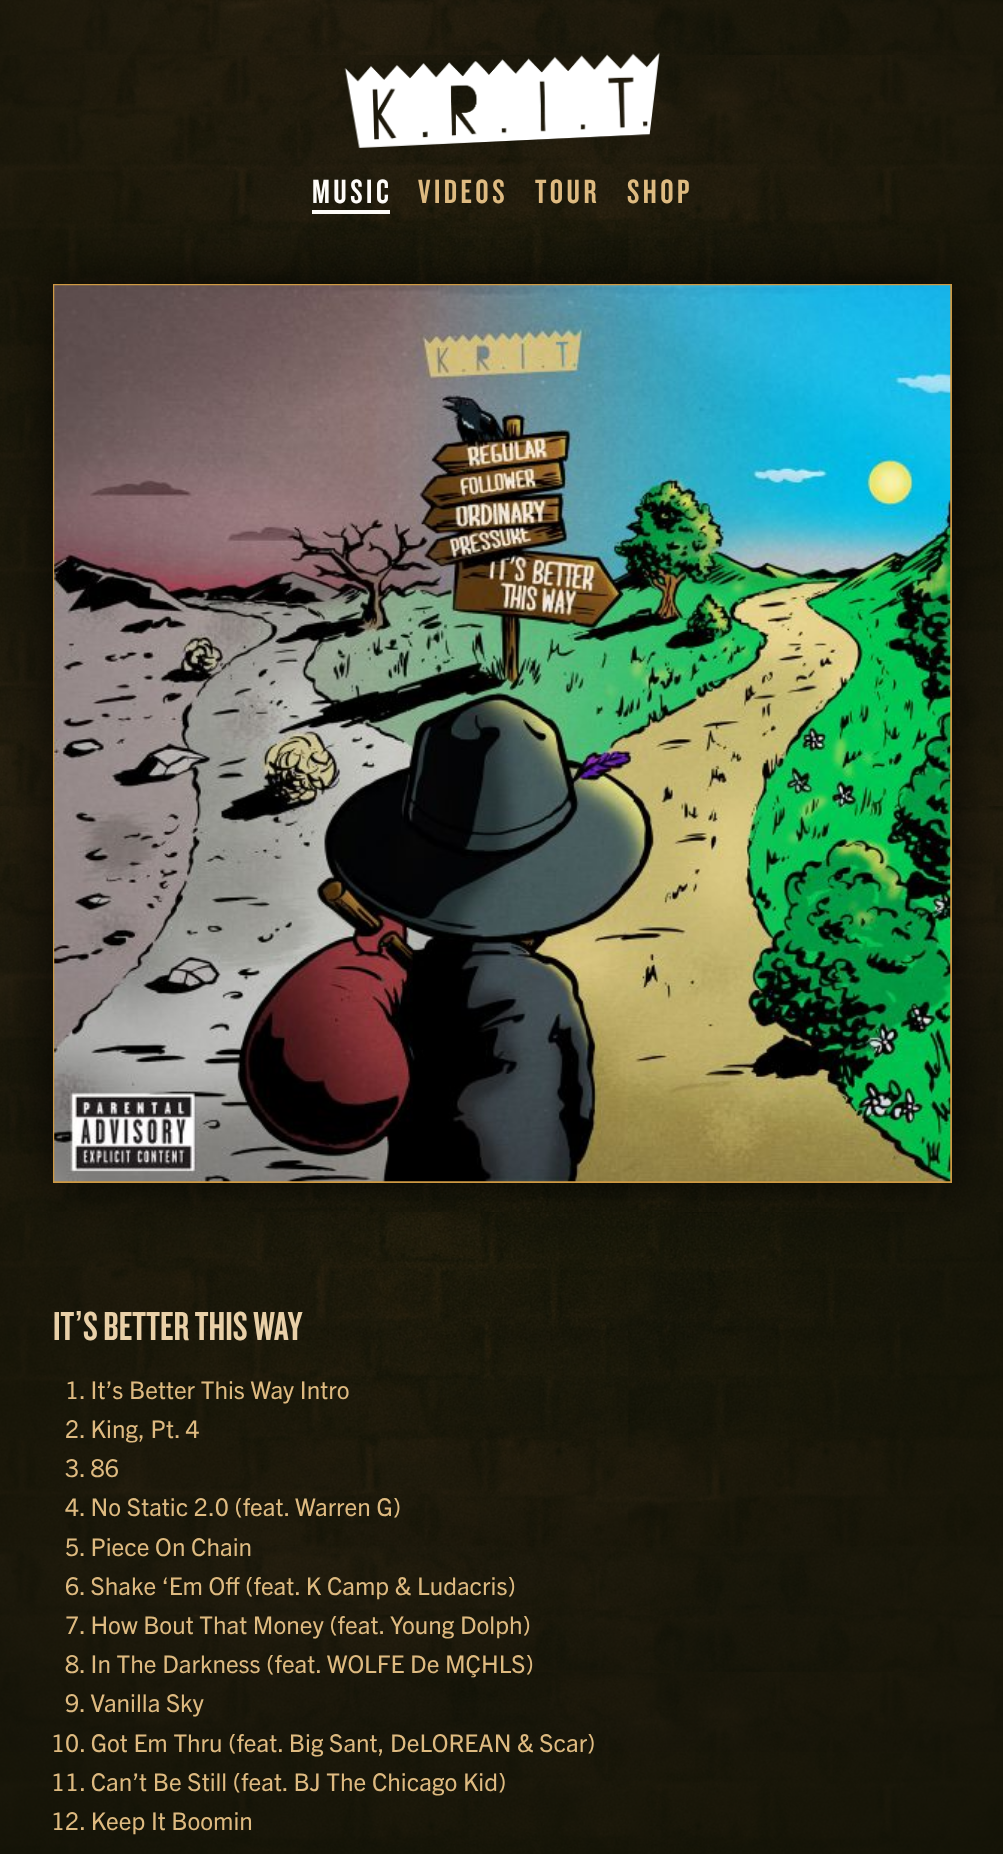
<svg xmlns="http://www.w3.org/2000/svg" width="1003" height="1854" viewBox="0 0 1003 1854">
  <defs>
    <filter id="blur1" x="-50%" y="-200%" width="200%" height="500%"><feGaussianBlur stdDeviation="26"/></filter>
  </defs>
  <rect width="100%" height="100%" fill="#ffffff"/>
  <image x="0" y="0" width="1003" height="1854" href="img1.png"/>
  <image x="344" y="52" width="316" height="96" href="img2.png"/>
  <text x="312" y="203" font-family="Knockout" font-size="35" font-weight="500" letter-spacing="3.5" fill="#fefcf9">MUSIC</text>
  <rect x="53" y="284" width="899" height="899" fill="#121206" fill-opacity="0.75" filter="url(#blur1)"/>
  <rect x="312" y="210" width="78" height="4" fill="#fefcf9"/>
  <text x="418" y="203" font-family="Knockout" font-size="35" font-weight="500" letter-spacing="3.5" fill="#deba80">VIDEOS</text>
  <text x="535" y="203" font-family="Knockout" font-size="35" font-weight="500" letter-spacing="3.5" fill="#deba80">TOUR</text>
  <text x="627" y="203" font-family="Knockout" font-size="35" font-weight="500" letter-spacing="3.5" fill="#deba80">SHOP</text>
  <rect x="54" y="285" width="897" height="897" fill="none" stroke="#ce9943" stroke-width="2"/>
  <image x="54" y="285" width="897" height="897" href="img3.png"/>
  <text x="53" y="1340" font-family="Knockout" font-size="42" font-weight="500" fill="#e9d0a8">IT</text>
  <text x="74" y="1340" font-family="Liberation Sans" font-size="42" fill="#e9d0a8">’</text>
  <text x="83" y="1340" font-family="Knockout" font-size="42" font-weight="500" fill="#e9d0a8">S BETTER THIS WAY</text>
  <text x="65" y="1399" font-family="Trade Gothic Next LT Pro" font-size="24.5" fill="#deba80">1. It’s Better This Way Intro</text>
  <text x="65" y="1438" font-family="Trade Gothic Next LT Pro" font-size="24.5" fill="#deba80">2. King, Pt. 4</text>
  <text x="65" y="1477" font-family="Trade Gothic Next LT Pro" font-size="24.5" fill="#deba80">3. 86</text>
  <text x="65" y="1516" font-family="Trade Gothic Next LT Pro" font-size="24.5" fill="#deba80">4. No Static 2.0 (feat. Warren G)</text>
  <text x="65" y="1556" font-family="Trade Gothic Next LT Pro" font-size="24.5" fill="#deba80">5. Piece On Chain</text>
  <text x="65" y="1595" font-family="Trade Gothic Next LT Pro" font-size="24.5" fill="#deba80">6. Shake ‘Em Off (feat. K Camp &amp; Ludacris)</text>
  <text x="65" y="1634" font-family="Trade Gothic Next LT Pro" font-size="24.5" fill="#deba80">7. How Bout That Money (feat. Young Dolph)</text>
  <text x="65" y="1673" font-family="Trade Gothic Next LT Pro" font-size="24.5" fill="#deba80">8. In The Darkness (feat. WOLFE De MÇHLS)</text>
  <text x="65" y="1712" font-family="Trade Gothic Next LT Pro" font-size="24.5" fill="#deba80">9. Vanilla Sky</text>
  <text x="51" y="1752" font-family="Trade Gothic Next LT Pro" font-size="24.5" fill="#deba80">10. Got Em Thru (feat. Big Sant, DeLOREAN &amp; Scar)</text>
  <text x="51" y="1791" font-family="Trade Gothic Next LT Pro" font-size="24.5" fill="#deba80">11. Can’t Be Still (feat. BJ The Chicago Kid)</text>
  <text x="51" y="1830" font-family="Trade Gothic Next LT Pro" font-size="24.5" fill="#deba80">12. Keep It Boomin</text>
</svg>
